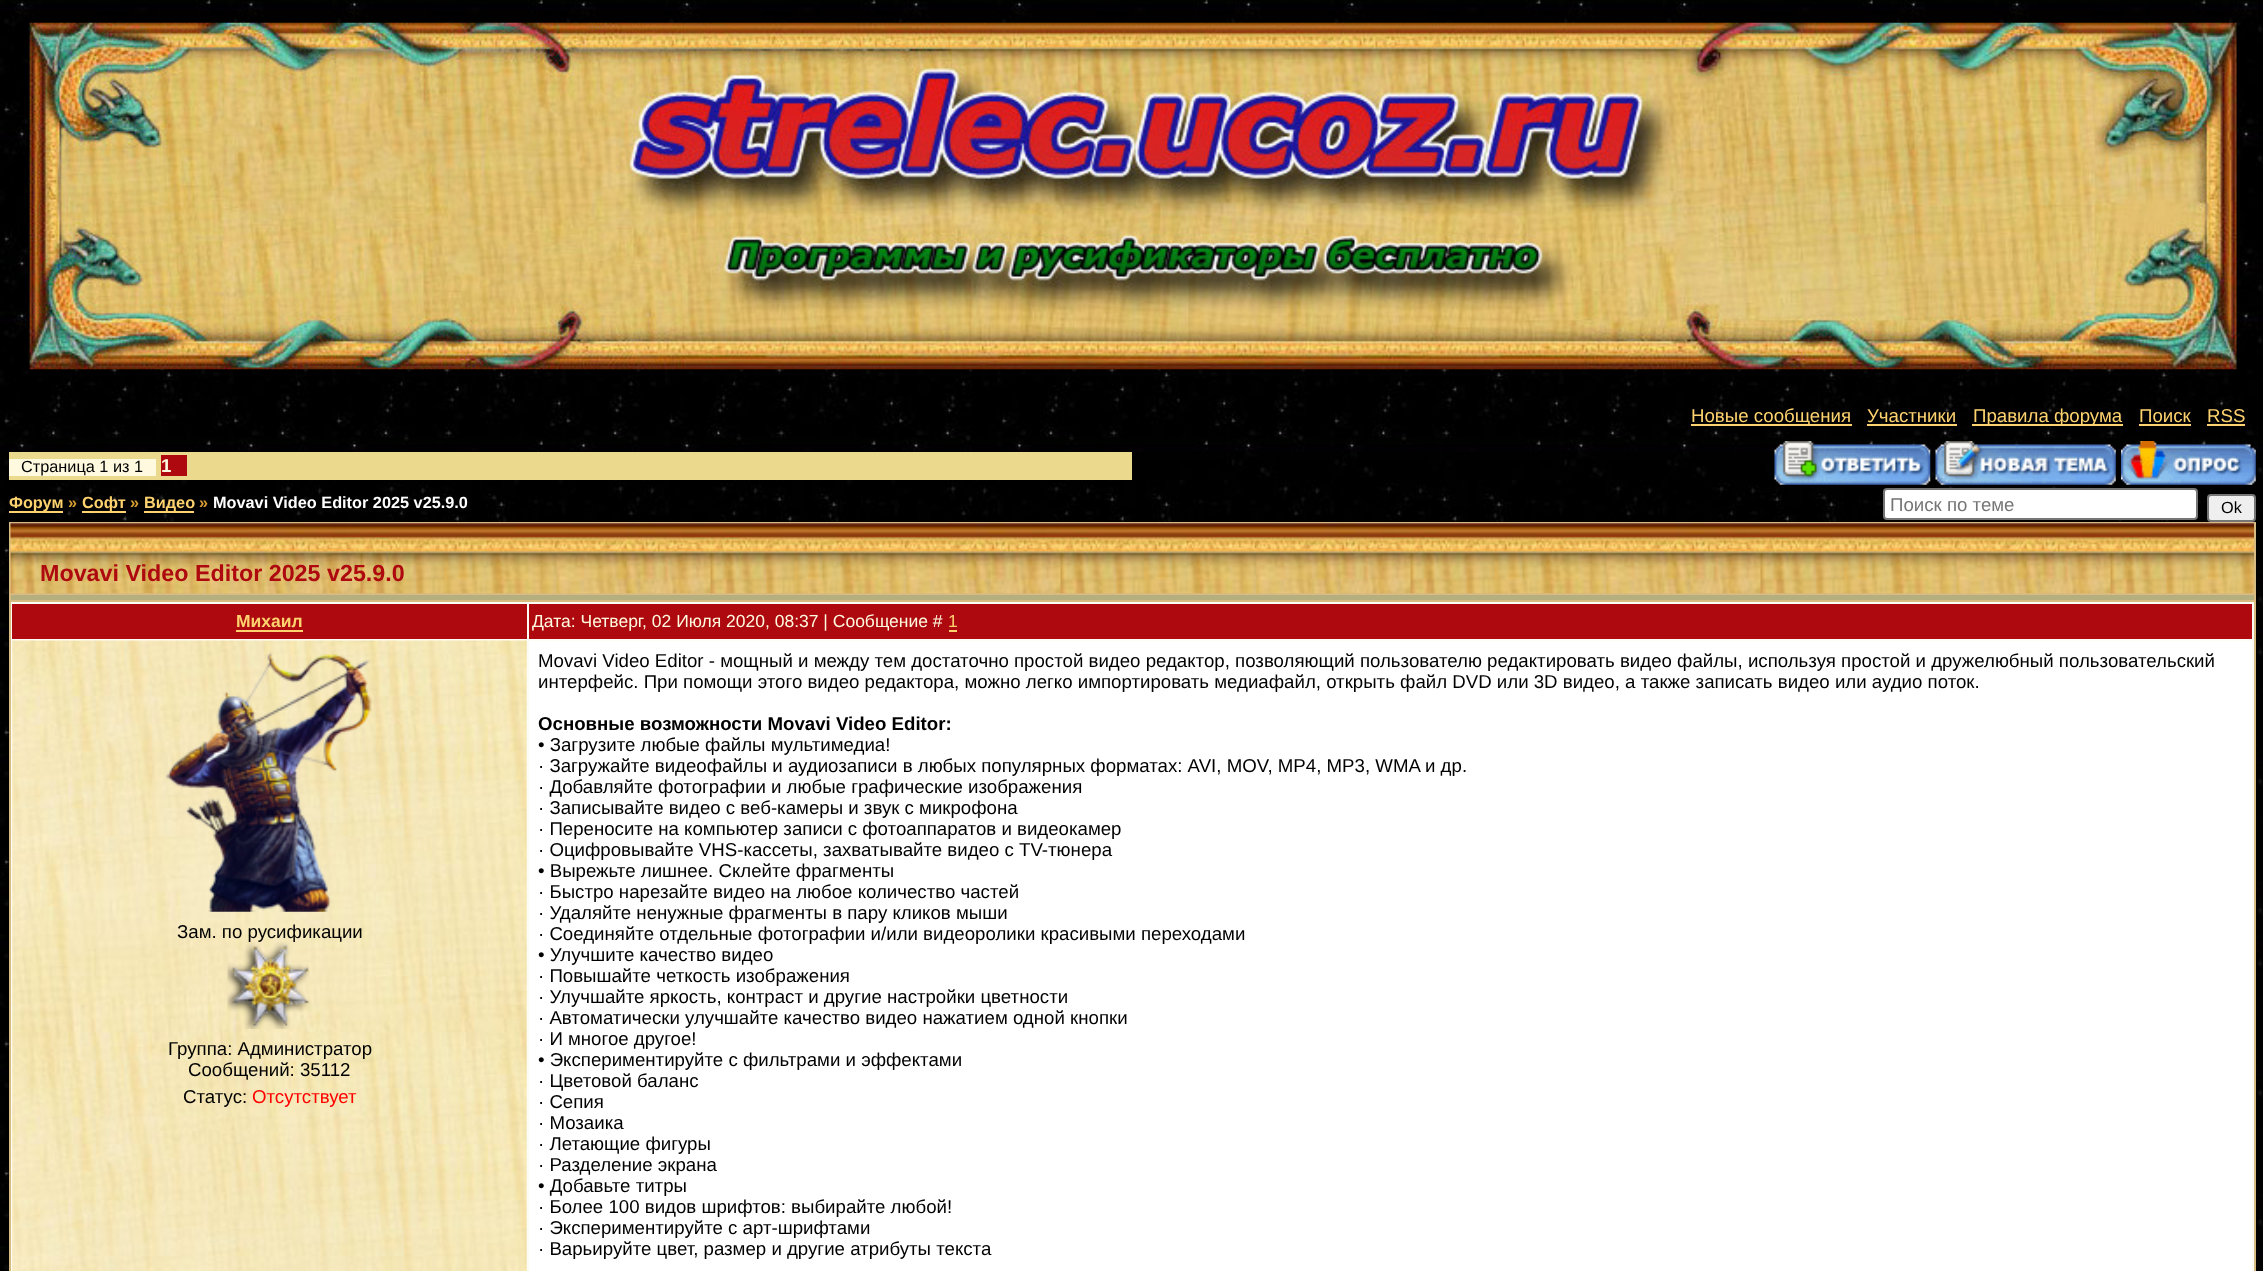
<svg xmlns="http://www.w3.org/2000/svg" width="2263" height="1271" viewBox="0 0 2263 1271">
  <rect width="100%" height="100%" fill="#ffffff"/>
  <image x="0" y="0" width="2263" height="1271" href="img1.png"/>
  <image x="28" y="22" width="2209" height="348" href="img2.png"/>
  <rect x="1691" y="424" width="161" height="2" fill="#fed36f"/>
  <text x="1691" y="422" font-family="Liberation Sans" font-size="18.67" fill="#fed36f">Новые сообщения</text>
  <text x="1867" y="422" font-family="Liberation Sans" font-size="18.67" fill="#fed36f">Участники</text>
  <rect x="1867" y="424" width="90" height="2" fill="#fed36f"/>
  <rect x="1972" y="424" width="151" height="2" fill="#fed36f"/>
  <text x="1973" y="422" font-family="Liberation Sans" font-size="18.67" fill="#fed36f">Правила форума</text>
  <text x="2139" y="422" font-family="Liberation Sans" font-size="18.67" fill="#fed36f">Поиск</text>
  <rect x="2139" y="424" width="52" height="2" fill="#fed36f"/>
  <text x="2207" y="422" font-family="Liberation Sans" font-size="18.67" fill="#fed36f">RSS</text>
  <rect x="2207" y="424" width="38" height="2" fill="#fed36f"/>
  <rect x="9" y="452" width="1123" height="28" fill="#ebd98e"/>
  <rect x="9" y="459" width="147" height="17" fill="#fffadf"/>
  <text x="21" y="472" font-family="Liberation Sans" font-size="16.3" fill="#000000">Страница 1 из 1</text>
  <rect x="161" y="455" width="26" height="21" fill="#ad090e"/>
  <text x="161" y="472" font-family="Liberation Sans" font-size="18.67" font-weight="bold" fill="#fffadf">1</text>
  <image x="1774" y="441" width="157" height="44" href="img3.png"/>
  <image x="1935" y="441" width="181" height="44" href="img4.png"/>
  <image x="2121" y="441" width="135" height="44" href="img5.png"/>
  <rect x="9" y="511" width="54" height="2" fill="#fed36f"/>
  <text x="9" y="508" font-family="Liberation Sans" font-size="16.3" font-weight="bold" fill="#fed36f">Форум</text>
  <text x="68" y="508" font-family="Liberation Sans" font-size="16.3" font-weight="bold" fill="#d69d30">»</text>
  <rect x="82" y="511" width="44" height="2" fill="#fed36f"/>
  <text x="82" y="508" font-family="Liberation Sans" font-size="16.3" font-weight="bold" fill="#fed36f">Софт</text>
  <text x="130" y="508" font-family="Liberation Sans" font-size="16.3" font-weight="bold" fill="#d69d30">»</text>
  <rect x="144" y="511" width="50" height="2" fill="#fed36f"/>
  <text x="144" y="508" font-family="Liberation Sans" font-size="16.3" font-weight="bold" fill="#fed36f">Видео</text>
  <text x="199" y="508" font-family="Liberation Sans" font-size="16.3" font-weight="bold" fill="#d69d30">»</text>
  <text x="213" y="508" font-family="Liberation Sans" font-size="16.3" font-weight="bold" fill="#ffffff">Movavi Video Editor 2025 v25.9.0</text>
  <rect x="1884" y="489" width="313" height="30" rx="3" fill="#ffffff" stroke="#767676" stroke-width="2"/>
  <text x="1890" y="511" font-family="Liberation Sans" font-size="18.67" fill="#757575">Поиск по теме</text>
  <rect x="2208" y="495" width="47" height="26" rx="3" fill="#efefef" stroke="#767676" stroke-width="2"/>
  <text x="2221" y="513" font-family="Liberation Sans" font-size="16.3" fill="#000000">Ok</text>
  <rect x="9" y="522" width="2247" height="749" fill="#d8ba83"/>
  <image x="10" y="523" width="2244" height="71" href="img6.png"/>
  <text x="40" y="581" font-family="Liberation Sans" font-size="23.3" font-weight="bold" fill="#ad090e">Movavi Video Editor 2025 v25.9.0</text>
  <rect x="11" y="595" width="2243" height="5" fill="#b5af80"/>
  <rect x="11" y="602" width="2243" height="669" fill="#fdfcf4"/>
  <rect x="12" y="604" width="515" height="35" fill="#ad090e"/>
  <text x="236" y="627" font-family="Liberation Sans" font-size="17.5" font-weight="bold" fill="#fed36f">Михаил</text>
  <rect x="236" y="630" width="67" height="2" fill="#fed36f"/>
  <rect x="529" y="604" width="1723" height="35" fill="#ad090e"/>
  <text x="532" y="627" font-family="Liberation Sans" font-size="17.5" fill="#fffadf">Дата: Четверг, 02 Июля 2020, 08:37 | Сообщение #</text>
  <text x="948" y="627" font-family="Liberation Sans" font-size="17.5" fill="#fed36f">1</text>
  <rect x="949" y="630" width="8" height="2" fill="#fed36f"/>
  <image x="12" y="640" width="515" height="631" href="img7.png"/>
  <image x="166" y="652" width="206" height="260" href="img8.png"/>
  <text x="177" y="938" font-family="Liberation Sans" font-size="18.67" fill="#000000">Зам. по русификации</text>
  <image x="227" y="942" width="83" height="87" href="img9.png"/>
  <text x="168" y="1055" font-family="Liberation Sans" font-size="18.67" fill="#000000">Группа: Администратор</text>
  <text x="188" y="1076" font-family="Liberation Sans" font-size="18.67" fill="#000000">Сообщений: 35112</text>
  <text x="183" y="1103" font-family="Liberation Sans" font-size="18.67" fill="#000000">Статус:</text>
  <text x="252" y="1103" font-family="Liberation Sans" font-size="18.67" fill="#ff0000">Отсутствует</text>
  <rect x="529" y="641" width="1723" height="630" fill="#ffffff"/>
  <text x="538" y="667" font-family="Liberation Sans" font-size="18.67" fill="#000000">Movavi Video Editor - мощный и между тем достаточно простой видео редактор, позволяющий пользователю редактировать видео файлы, используя простой и дружелюбный пользовательский</text>
  <text x="538" y="688" font-family="Liberation Sans" font-size="18.67" fill="#000000">интерфейс. При помощи этого видео редактора, можно легко импортировать медиафайл, открыть файл DVD или 3D видео, а также записать видео или аудио поток.</text>
  <text x="538" y="730" font-family="Liberation Sans" font-size="18.67" font-weight="bold" fill="#000000">Основные возможности Movavi Video Editor:</text>
  <text x="538" y="751" font-family="Liberation Sans" font-size="18.67" fill="#000000">• Загрузите любые файлы мультимедиа!</text>
  <text x="538" y="772" font-family="Liberation Sans" font-size="18.67" fill="#000000">· Загружайте видеофайлы и аудиозаписи в любых популярных форматах: AVI, MOV, MP4, MP3, WMA и др.</text>
  <text x="538" y="793" font-family="Liberation Sans" font-size="18.67" fill="#000000">· Добавляйте фотографии и любые графические изображения</text>
  <text x="538" y="814" font-family="Liberation Sans" font-size="18.67" fill="#000000">· Записывайте видео с веб-камеры и звук с микрофона</text>
  <text x="538" y="835" font-family="Liberation Sans" font-size="18.67" fill="#000000">· Переносите на компьютер записи с фотоаппаратов и видеокамер</text>
  <text x="538" y="856" font-family="Liberation Sans" font-size="18.67" fill="#000000">· Оцифровывайте VHS-кассеты, захватывайте видео с TV-тюнера</text>
  <text x="538" y="877" font-family="Liberation Sans" font-size="18.67" fill="#000000">• Вырежьте лишнее. Склейте фрагменты</text>
  <text x="538" y="898" font-family="Liberation Sans" font-size="18.67" fill="#000000">· Быстро нарезайте видео на любое количество частей</text>
  <text x="538" y="919" font-family="Liberation Sans" font-size="18.67" fill="#000000">· Удаляйте ненужные фрагменты в пару кликов мыши</text>
  <text x="538" y="940" font-family="Liberation Sans" font-size="18.67" fill="#000000">· Соединяйте отдельные фотографии и/или видеоролики красивыми переходами</text>
  <text x="538" y="961" font-family="Liberation Sans" font-size="18.67" fill="#000000">• Улучшите качество видео</text>
  <text x="538" y="982" font-family="Liberation Sans" font-size="18.67" fill="#000000">· Повышайте четкость изображения</text>
  <text x="538" y="1003" font-family="Liberation Sans" font-size="18.67" fill="#000000">· Улучшайте яркость, контраст и другие настройки цветности</text>
  <text x="538" y="1024" font-family="Liberation Sans" font-size="18.67" fill="#000000">· Автоматически улучшайте качество видео нажатием одной кнопки</text>
  <text x="538" y="1045" font-family="Liberation Sans" font-size="18.67" fill="#000000">· И многое другое!</text>
  <text x="538" y="1066" font-family="Liberation Sans" font-size="18.67" fill="#000000">• Экспериментируйте с фильтрами и эффектами</text>
  <text x="538" y="1087" font-family="Liberation Sans" font-size="18.67" fill="#000000">· Цветовой баланс</text>
  <text x="538" y="1108" font-family="Liberation Sans" font-size="18.67" fill="#000000">· Сепия</text>
  <text x="538" y="1129" font-family="Liberation Sans" font-size="18.67" fill="#000000">· Мозаика</text>
  <text x="538" y="1150" font-family="Liberation Sans" font-size="18.67" fill="#000000">· Летающие фигуры</text>
  <text x="538" y="1171" font-family="Liberation Sans" font-size="18.67" fill="#000000">· Разделение экрана</text>
  <text x="538" y="1192" font-family="Liberation Sans" font-size="18.67" fill="#000000">• Добавьте титры</text>
  <text x="538" y="1213" font-family="Liberation Sans" font-size="18.67" fill="#000000">· Более 100 видов шрифтов: выбирайте любой!</text>
  <text x="538" y="1234" font-family="Liberation Sans" font-size="18.67" fill="#000000">· Экспериментируйте с арт-шрифтами</text>
  <text x="538" y="1255" font-family="Liberation Sans" font-size="18.67" fill="#000000">· Варьируйте цвет, размер и другие атрибуты текста</text>
</svg>
